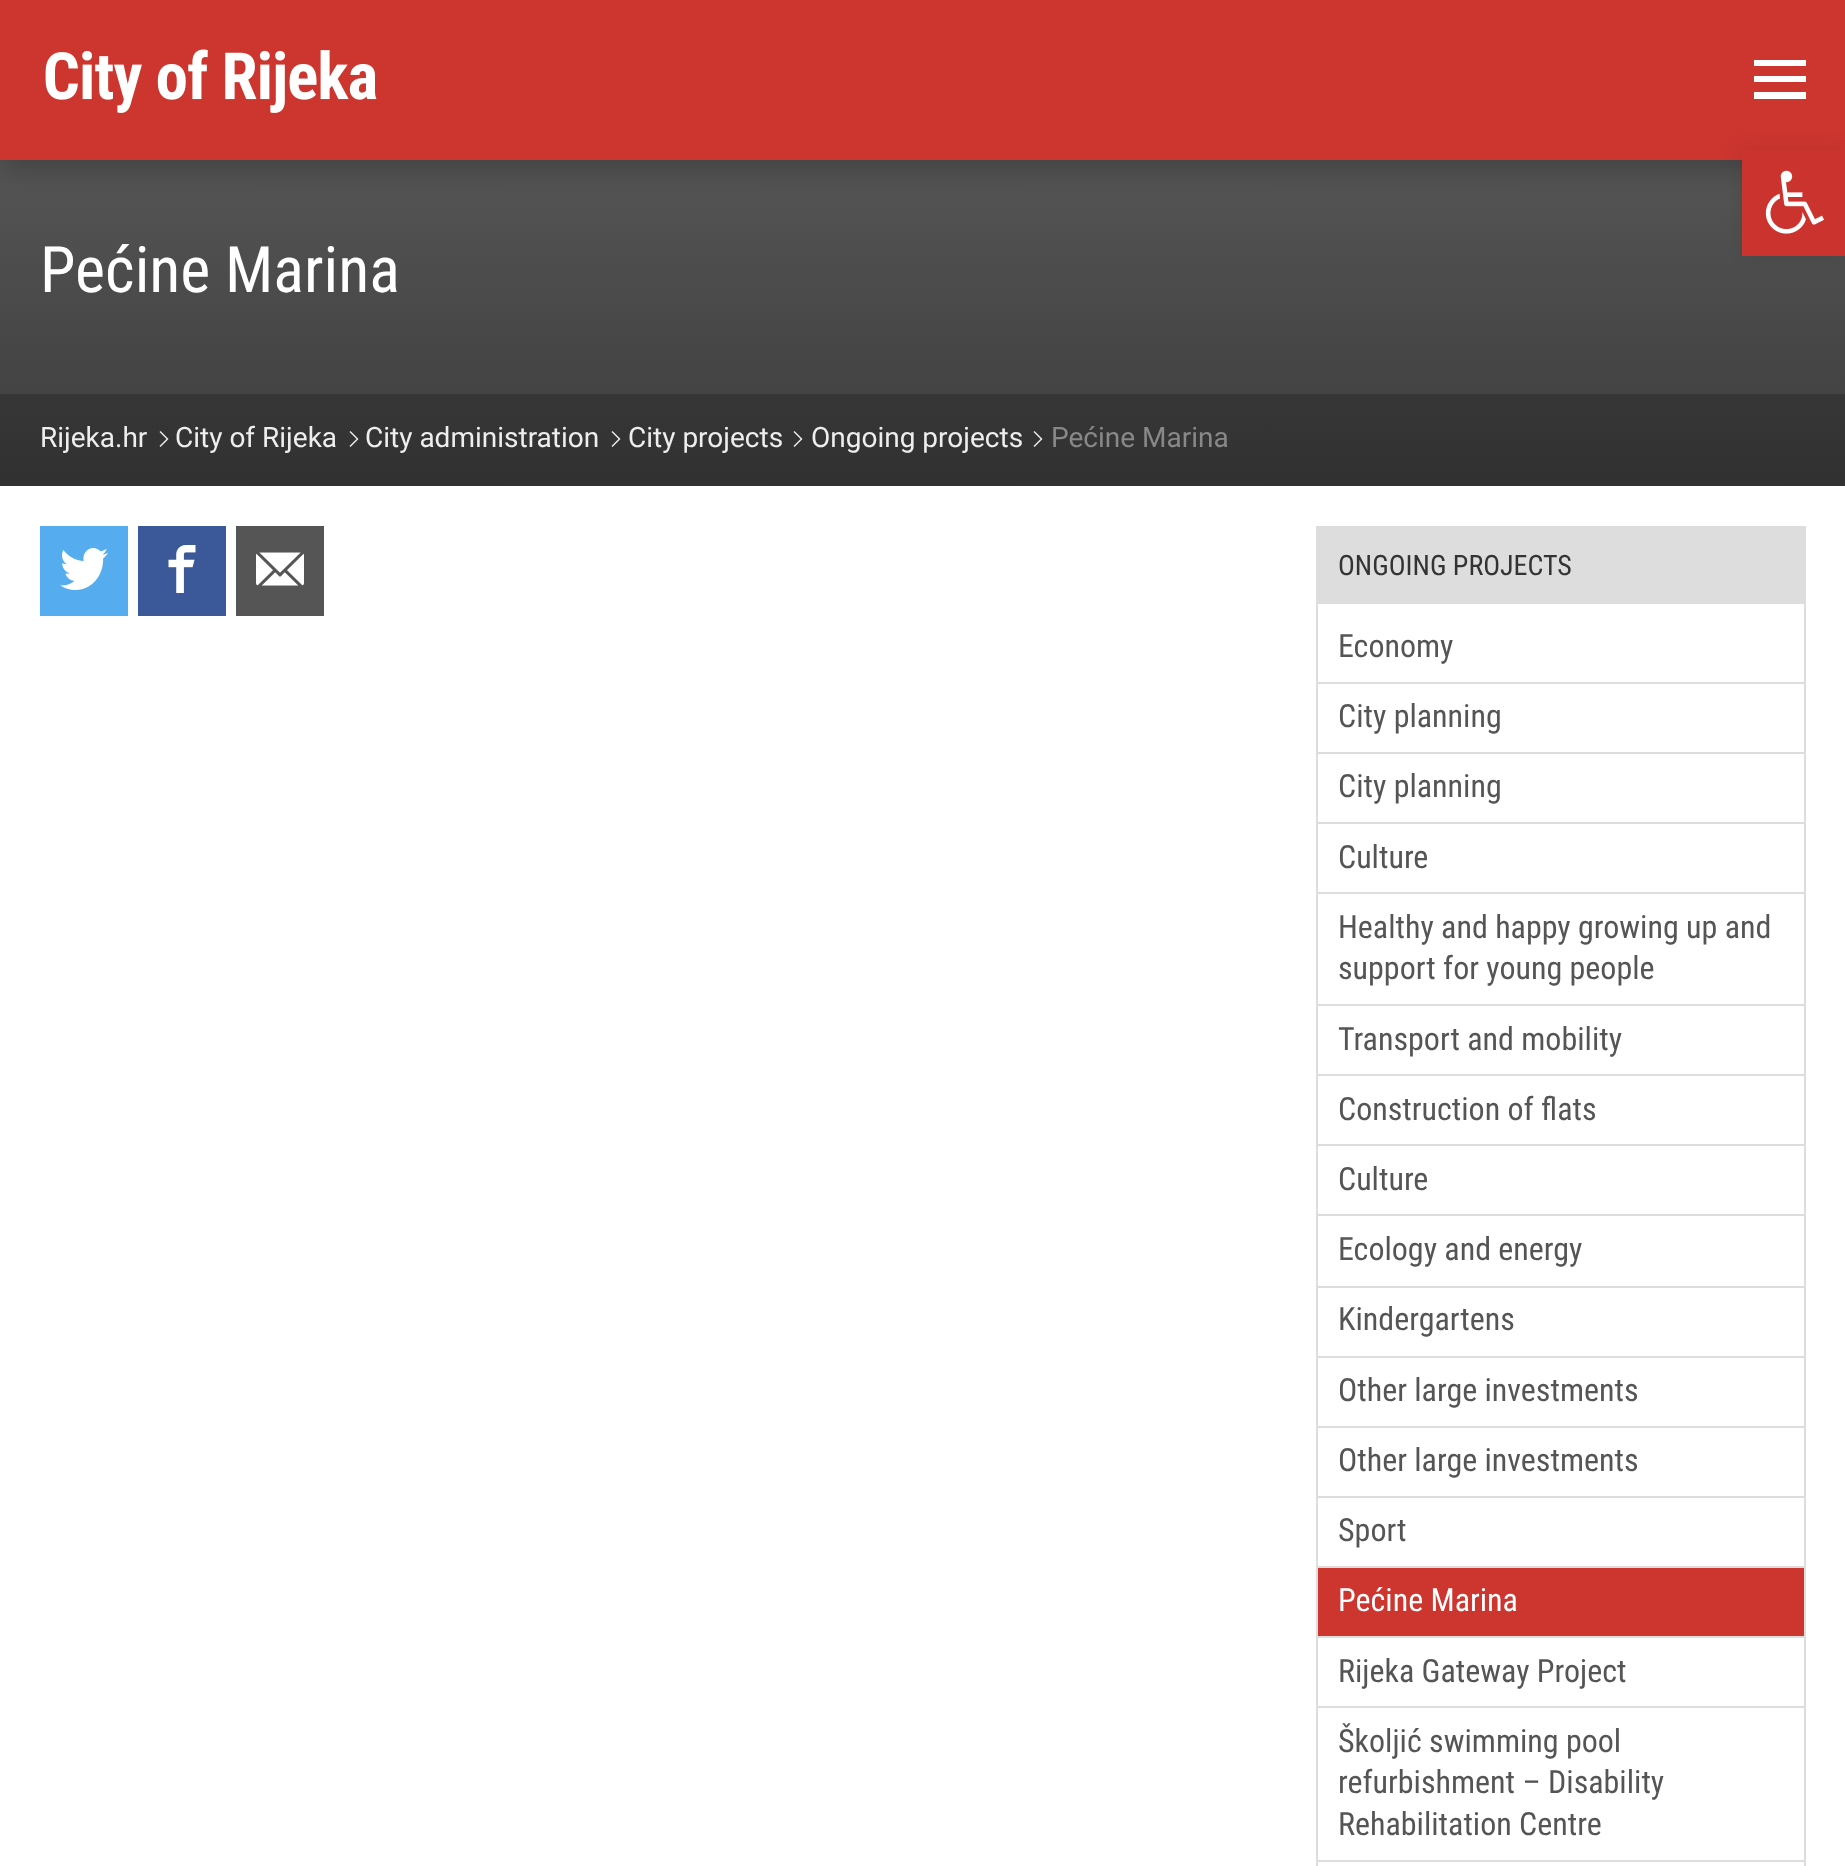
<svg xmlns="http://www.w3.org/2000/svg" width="1845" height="1866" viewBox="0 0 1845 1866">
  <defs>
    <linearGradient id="g1" gradientUnits="userSpaceOnUse" x1="923" y1="160" x2="923" y2="486"><stop offset="0" stop-color="#555555"/><stop offset="1" stop-color="#3c3c3c"/></linearGradient>
    <filter id="blur1" x="-50%" y="-200%" width="200%" height="500%"><feGaussianBlur stdDeviation="15"/></filter>
    <filter id="blur2" x="-50%" y="-200%" width="200%" height="500%"><feGaussianBlur stdDeviation="10"/></filter>
    <linearGradient id="g2" gradientUnits="userSpaceOnUse" x1="923" y1="160" x2="923" y2="486"><stop offset="0" stop-color="#444444"/><stop offset="1" stop-color="#313131"/></linearGradient>
  </defs>
  <rect width="100%" height="100%" fill="#ffffff"/>
  <rect x="0" y="160" width="1845" height="234" fill="url(#g1)"/>
  <rect x="0" y="8" width="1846" height="160" fill="#111111" fill-opacity="0.25" filter="url(#blur1)"/>
  <rect x="0" y="0" width="1845" height="160" fill="#cd352f"/>
  <rect x="1742" y="150" width="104" height="106" fill="#000000" fill-opacity="0.1" filter="url(#blur2)"/>
  <rect x="1742" y="150" width="103" height="106" fill="#cb342e"/>
  <image x="1765" y="170" width="59" height="64" href="img1.png"/>
  <image x="45" y="49" width="332" height="64" href="img2.png"/>
  <path d="M1754 82H1806V76H1754ZM1754 66H1806V60H1754ZM1754 99H1806V92H1754Z" fill="#ffffff"/>
  <rect x="0" y="394" width="1845" height="92" fill="url(#g2)"/>
  <text x="40" y="292" font-family="Roboto Condensed" font-size="64" fill="#ffffff">Pećine Marina</text>
  <text x="40" y="447" font-family="Roboto" font-size="28" fill="#eeeeee">Rijeka.hr</text>
  <image x="159" y="431" width="10" height="16" href="img3.png"/>
  <text x="175" y="447" font-family="Roboto" font-size="28" fill="#eeeeee">City of Rijeka</text>
  <image x="349" y="431" width="10" height="16" href="img3.png"/>
  <text x="365" y="447" font-family="Roboto" font-size="28" fill="#eeeeee">City administration</text>
  <image x="611" y="431" width="10" height="16" href="img3.png"/>
  <text x="628" y="447" font-family="Roboto" font-size="28" fill="#eeeeee">City projects</text>
  <image x="793" y="431" width="10" height="16" href="img3.png"/>
  <text x="811" y="447" font-family="Roboto" font-size="28" fill="#eeeeee">Ongoing projects</text>
  <image x="1033" y="431" width="10" height="16" href="img3.png"/>
  <text x="1051" y="447" font-family="Roboto" font-size="28" fill="#888888">Pećine Marina</text>
  <rect x="40" y="526" width="88" height="90" fill="#55acee"/>
  <image x="60" y="548" width="48" height="42" href="img4.png"/>
  <rect x="138" y="526" width="88" height="90" fill="#3b5998"/>
  <image x="168" y="545" width="28" height="48" href="img5.png"/>
  <rect x="236" y="526" width="88" height="90" fill="#555555"/>
  <image x="256" y="552" width="48" height="34" href="img6.png"/>
  <rect x="1317" y="527" width="488" height="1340" fill="none" stroke="#dddddd" stroke-width="2"/>
  <rect x="1318" y="528" width="486" height="76" fill="#dddddd"/>
  <text x="1338" y="575" font-family="Roboto Condensed" font-size="28" fill="#333333">ONGOING PROJECTS</text>
  <rect x="1318" y="682" width="486" height="2" fill="#dddddd"/>
  <text x="1338" y="657" font-family="Roboto Condensed" font-size="32" fill="#555555">Economy</text>
  <rect x="1318" y="752" width="486" height="2" fill="#dddddd"/>
  <text x="1338" y="727" font-family="Roboto Condensed" font-size="32" fill="#555555">City planning</text>
  <rect x="1318" y="822" width="486" height="2" fill="#dddddd"/>
  <text x="1338" y="797" font-family="Roboto Condensed" font-size="32" fill="#555555">City planning</text>
  <rect x="1318" y="892" width="486" height="2" fill="#dddddd"/>
  <text x="1338" y="868" font-family="Roboto Condensed" font-size="32" fill="#555555">Culture</text>
  <rect x="1318" y="1004" width="486" height="2" fill="#dddddd"/>
  <text x="1338" y="938" font-family="Roboto Condensed" font-size="32" fill="#555555">Healthy and happy growing up and</text>
  <text x="1338" y="979" font-family="Roboto Condensed" font-size="32" fill="#555555">support for young people</text>
  <rect x="1318" y="1074" width="486" height="2" fill="#dddddd"/>
  <text x="1338" y="1050" font-family="Roboto Condensed" font-size="32" fill="#555555">Transport and mobility</text>
  <rect x="1318" y="1144" width="486" height="2" fill="#dddddd"/>
  <text x="1338" y="1120" font-family="Roboto Condensed" font-size="32" fill="#555555">Construction of flats</text>
  <rect x="1318" y="1214" width="486" height="2" fill="#dddddd"/>
  <text x="1338" y="1190" font-family="Roboto Condensed" font-size="32" fill="#555555">Culture</text>
  <rect x="1318" y="1286" width="486" height="2" fill="#dddddd"/>
  <text x="1338" y="1260" font-family="Roboto Condensed" font-size="32" fill="#555555">Ecology and energy</text>
  <rect x="1318" y="1356" width="486" height="2" fill="#dddddd"/>
  <text x="1338" y="1330" font-family="Roboto Condensed" font-size="32" fill="#555555">Kindergartens</text>
  <rect x="1318" y="1426" width="486" height="2" fill="#dddddd"/>
  <text x="1338" y="1401" font-family="Roboto Condensed" font-size="32" fill="#555555">Other large investments</text>
  <rect x="1318" y="1496" width="486" height="2" fill="#dddddd"/>
  <text x="1338" y="1471" font-family="Roboto Condensed" font-size="32" fill="#555555">Other large investments</text>
  <rect x="1318" y="1566" width="486" height="2" fill="#dddddd"/>
  <text x="1338" y="1541" font-family="Roboto Condensed" font-size="32" fill="#555555">Sport</text>
  <rect x="1318" y="1568" width="486" height="68" fill="#cd352f"/>
  <rect x="1318" y="1636" width="486" height="2" fill="#dddddd"/>
  <text x="1338" y="1611" font-family="Roboto Condensed" font-size="32" fill="#ffffff">Pećine Marina</text>
  <rect x="1318" y="1706" width="486" height="2" fill="#dddddd"/>
  <text x="1338" y="1682" font-family="Roboto Condensed" font-size="32" fill="#555555">Rijeka Gateway Project</text>
  <rect x="1318" y="1860" width="486" height="2" fill="#dddddd"/>
  <text x="1338" y="1752" font-family="Roboto Condensed" font-size="32" fill="#555555">Školjić swimming pool</text>
  <text x="1338" y="1793" font-family="Roboto Condensed" font-size="32" fill="#555555">refurbishment – Disability</text>
  <text x="1338" y="1835" font-family="Roboto Condensed" font-size="32" fill="#555555">Rehabilitation Centre</text>
</svg>
